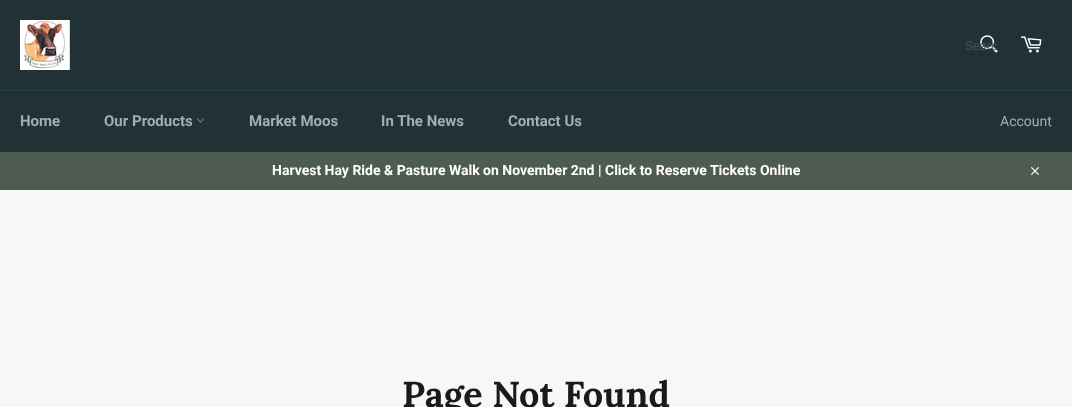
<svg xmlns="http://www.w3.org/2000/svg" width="1072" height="407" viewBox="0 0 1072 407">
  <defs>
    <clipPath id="clip1"><rect x="965" y="38" width="32" height="15"/></clipPath>
  </defs>
  <rect width="100%" height="100%" fill="#f7f7f7"/>
  <rect x="0" y="0" width="1072" height="90" fill="#213236"/>
  <image x="20" y="20" width="50" height="50" href="img1.png"/>
  <image x="980" y="35" width="18" height="18" href="img2.png"/>
  <g clip-path="url(#clip1)">
    <text x="965" y="50" font-family="Roboto" font-size="13" fill="#435155">Searc</text>
  </g>
  <image x="1020" y="36" width="22" height="17" href="img3.png"/>
  <rect x="0" y="91" width="1072" height="61" fill="#213236"/>
  <rect x="0" y="90" width="1072" height="1" fill="#2b4146"/>
  <text x="20" y="126" font-family="Roboto" font-size="15" font-weight="bold" fill="#a6adaf">Home</text>
  <text x="104" y="126" font-family="Roboto" font-size="15" font-weight="bold" fill="#a6adaf">Our Products</text>
  <image x="197" y="118" width="7" height="5" href="img4.png"/>
  <text x="249" y="126" font-family="Roboto" font-size="15" font-weight="bold" fill="#a6adaf">Market Moos</text>
  <text x="381" y="126" font-family="Roboto" font-size="15" font-weight="bold" fill="#a6adaf">In The News</text>
  <text x="508" y="126" font-family="Roboto" font-size="15" font-weight="bold" fill="#a6adaf">Contact Us</text>
  <text x="1000" y="126" font-family="Roboto" font-size="14" fill="#a6adaf">Account</text>
  <rect x="0" y="152" width="1072" height="38" fill="#4e5b50"/>
  <text x="272" y="175" font-family="Roboto" font-size="14" font-weight="bold" fill="#ffffff">Harvest Hay Ride &amp; Pasture Walk on November 2nd | Click to Reserve Tickets Online</text>
  <image x="1031" y="167" width="8" height="8" href="img5.png"/>
  <text x="402" y="407" font-family="Lora" font-size="36" font-weight="bold" fill="#1a1a1a">Page Not Found</text>
</svg>
